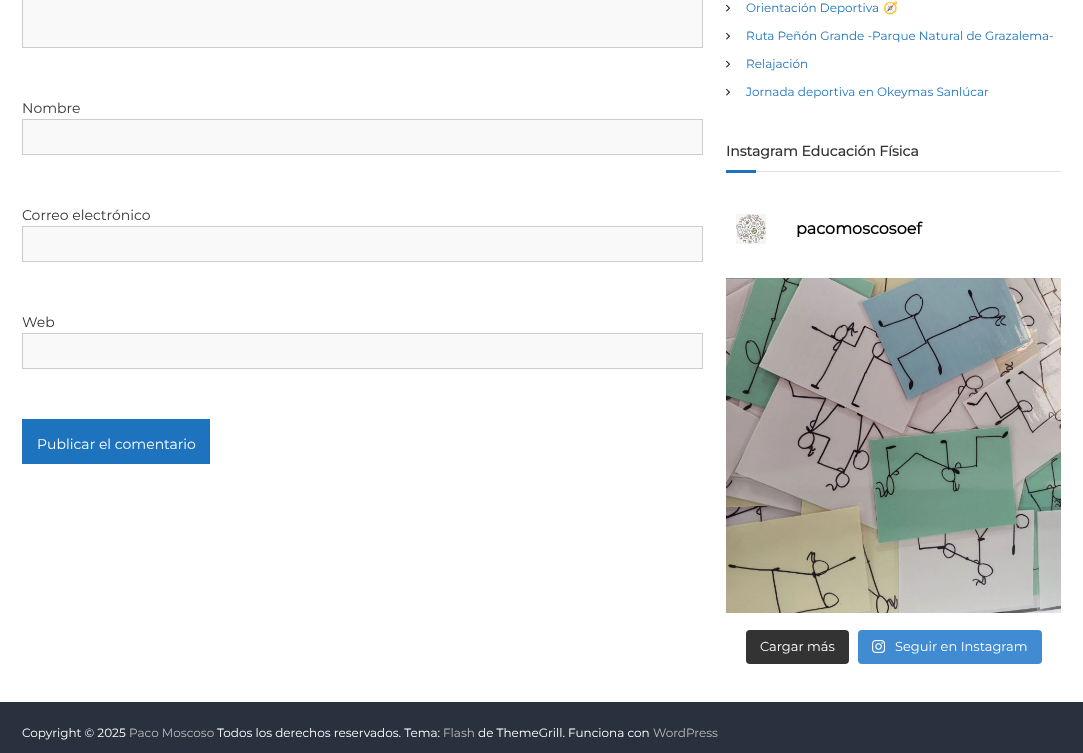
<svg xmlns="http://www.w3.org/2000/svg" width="1083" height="753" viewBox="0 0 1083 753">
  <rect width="100%" height="100%" fill="#ffffff"/>
  <rect x="22.5" y="-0.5" width="680" height="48" fill="#f9f9f9" stroke="#cccccc"/>
  <text x="22" y="113" font-family="Montserrat" font-size="14" fill="#333333">Nombre</text>
  <rect x="22.5" y="119.5" width="680" height="35" fill="#f9f9f9" stroke="#cccccc"/>
  <text x="22" y="220" font-family="Montserrat" font-size="14" fill="#333333">Correo electrónico</text>
  <rect x="22.5" y="226.5" width="680" height="35" fill="#f9f9f9" stroke="#cccccc"/>
  <text x="22" y="327" font-family="Montserrat" font-size="14" fill="#333333">Web</text>
  <rect x="22.5" y="333.5" width="680" height="35" fill="#f9f9f9" stroke="#cccccc"/>
  <rect x="22" y="419" width="188" height="45" fill="#1e73be"/>
  <text x="37" y="449" font-family="Montserrat" font-size="14" fill="#ffffff">Publicar el comentario</text>
  <image x="726" y="4" width="4" height="8" href="img1.png"/>
  <text x="746" y="12" font-family="Montserrat" font-size="12" fill="#1e73be">Orientación Deportiva</text>
  <text x="883" y="12" font-family="Noto Color Emoji" font-size="12" fill="#1e73be">🧭</text>
  <image x="726" y="32" width="4" height="8" href="img1.png"/>
  <text x="746" y="40" font-family="Montserrat" font-size="12" fill="#1e73be">Ruta Peñón Grande -Parque Natural de Grazalema-</text>
  <image x="726" y="60" width="4" height="8" href="img1.png"/>
  <text x="746" y="68" font-family="Montserrat" font-size="12" fill="#1e73be">Relajación</text>
  <image x="726" y="88" width="4" height="8" href="img1.png"/>
  <text x="746" y="96" font-family="Montserrat" font-size="12" fill="#1e73be">Jornada deportiva en Okeymas Sanlúcar</text>
  <text x="726" y="156" font-family="Montserrat" font-size="14" font-weight="bold" fill="#333333">Instagram Educación Física</text>
  <rect x="726" y="170" width="30" height="3" fill="#1e73be"/>
  <rect x="756" y="171" width="305" height="1" fill="#e1e1e1"/>
  <image x="736" y="214" width="30" height="30" href="img2.png"/>
  <text x="796" y="234" font-family="Montserrat" font-size="16" font-weight="bold" fill="#000000">pacomoscosoef</text>
  <image x="726" y="278" width="335" height="335" href="img3.png"/>
  <rect x="746" y="630" width="103" height="34" rx="4" fill="#333333"/>
  <text x="760" y="651" font-family="Montserrat" font-size="13" fill="#ffffff">Cargar más</text>
  <rect x="858" y="630" width="184" height="34" rx="4" fill="#408bd1"/>
  <image x="872" y="640" width="13" height="13" href="img4.png"/>
  <text x="895" y="651" font-family="Montserrat" font-size="13" fill="#ffffff">Seguir en Instagram</text>
  <rect x="0" y="702" width="1083" height="51" fill="#28313d"/>
  <text x="22" y="737" font-family="Montserrat" font-size="12" fill="#ffffff">Copyright © 2025</text>
  <text x="129" y="737" font-family="Montserrat" font-size="12" fill="#bcbaba">Paco Moscoso</text>
  <text x="217" y="737" font-family="Montserrat" font-size="12" fill="#ffffff">Todos los derechos reservados. Tema:</text>
  <text x="443" y="737" font-family="Montserrat" font-size="12" fill="#bcbaba">Flash</text>
  <text x="478" y="737" font-family="Montserrat" font-size="12" fill="#ffffff">de ThemeGrill. Funciona con</text>
  <text x="653" y="737" font-family="Montserrat" font-size="12" fill="#bcbaba">WordPress</text>
</svg>
